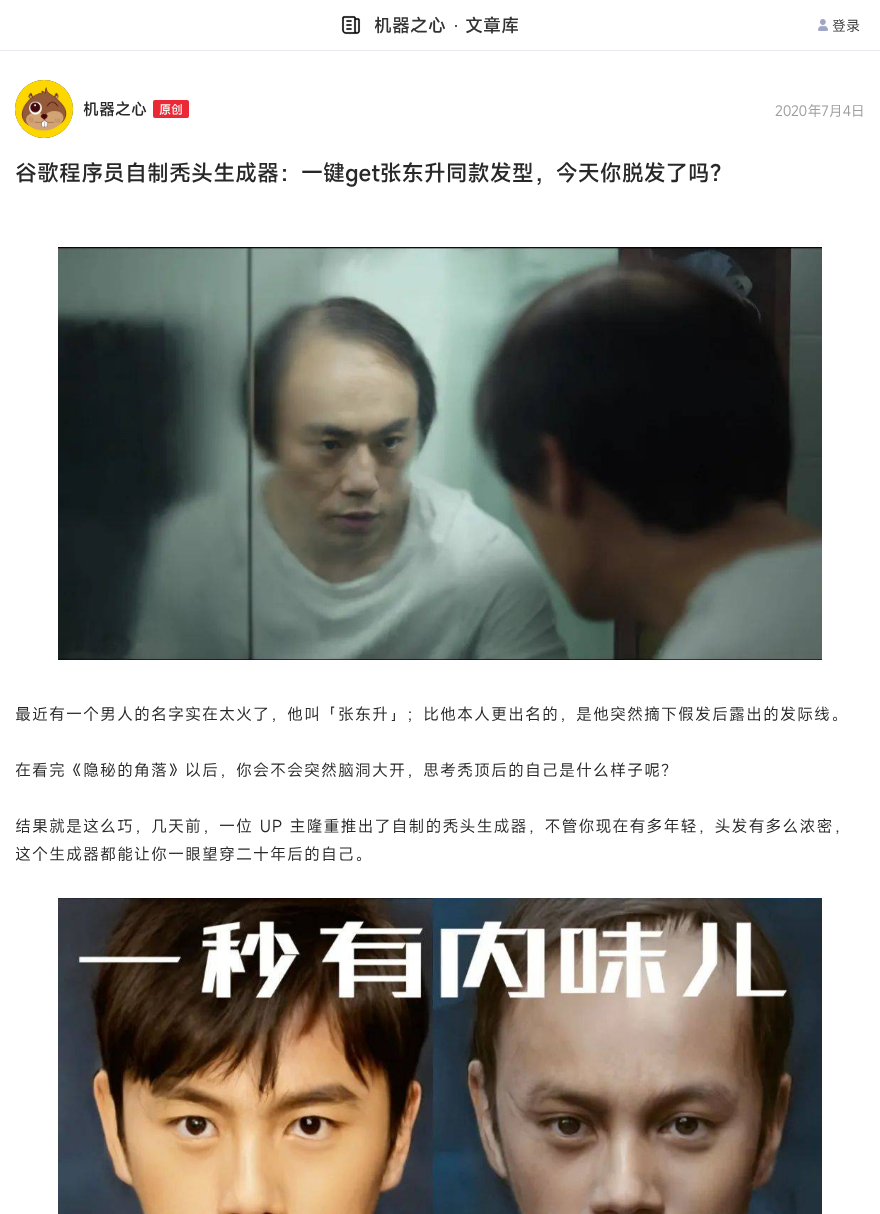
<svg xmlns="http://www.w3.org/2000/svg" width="880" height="1214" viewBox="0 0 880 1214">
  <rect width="100%" height="100%" fill="#ffffff"/>
  <rect x="0" y="50" width="880" height="1" fill="#ebecf1"/>
  <image x="341" y="15" width="20" height="20" href="img1.png"/>
  <text x="374" y="32" font-family="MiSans" font-size="18" font-weight="500" fill="#333333">机器之心</text>
  <text x="453" y="32" font-family="Liberation Serif" font-size="18" fill="#333333">·</text>
  <text x="465" y="32" font-family="MiSans" font-size="18" font-weight="500" fill="#333333">文章库</text>
  <image x="818" y="19" width="10" height="12" href="img2.png"/>
  <text x="832" y="31" font-family="MiSans" font-size="14" fill="#333333">登录</text>
  <circle cx="44" cy="109" r="29" fill="#333333"/>
  <image x="15" y="80" width="58" height="58" href="img3.png"/>
  <text x="83" y="115" font-family="MiSans" font-size="16" font-weight="500" fill="#282828">机器之心</text>
  <rect x="153" y="100" width="36" height="18" rx="2" fill="#eb2835"/>
  <text x="159" y="114" font-family="MiSans" font-size="12" font-weight="500" fill="#f6f6f6">原创</text>
  <text x="775" y="116" font-family="MiSans" font-size="14" fill="#9d9d9d">2020年7月4日</text>
  <text x="15" y="181" font-family="MiSans" font-size="22" font-weight="500" fill="#282828">谷歌程序员自制秃头生成器：一键get张东升同款发型，今天你脱发了吗？</text>
  <image x="58" y="247" width="764" height="413" href="img4.png"/>
  <text x="15" y="720" font-family="MiSans" font-size="16" letter-spacing="1" fill="#282828">最近有一个男人的名字实在太火了，他叫「张东升」；比他本人更出名的，是他突然摘下假发后露出的发际线。</text>
  <text x="15" y="776" font-family="MiSans" font-size="16" letter-spacing="1" fill="#282828">在看完《隐秘的角落》以后，你会不会突然脑洞大开，思考秃顶后的自己是什么样子呢？</text>
  <text x="15" y="832" font-family="MiSans" font-size="16" letter-spacing="1" fill="#282828">结果就是这么巧，几天前，一位 UP 主隆重推出了自制的秃头生成器，不管你现在有多年轻，头发有多么浓密，</text>
  <text x="15" y="860" font-family="MiSans" font-size="16" letter-spacing="1" fill="#282828">这个生成器都能让你一眼望穿二十年后的自己。</text>
  <image x="58" y="898" width="764" height="316" href="img5.png"/>
</svg>
